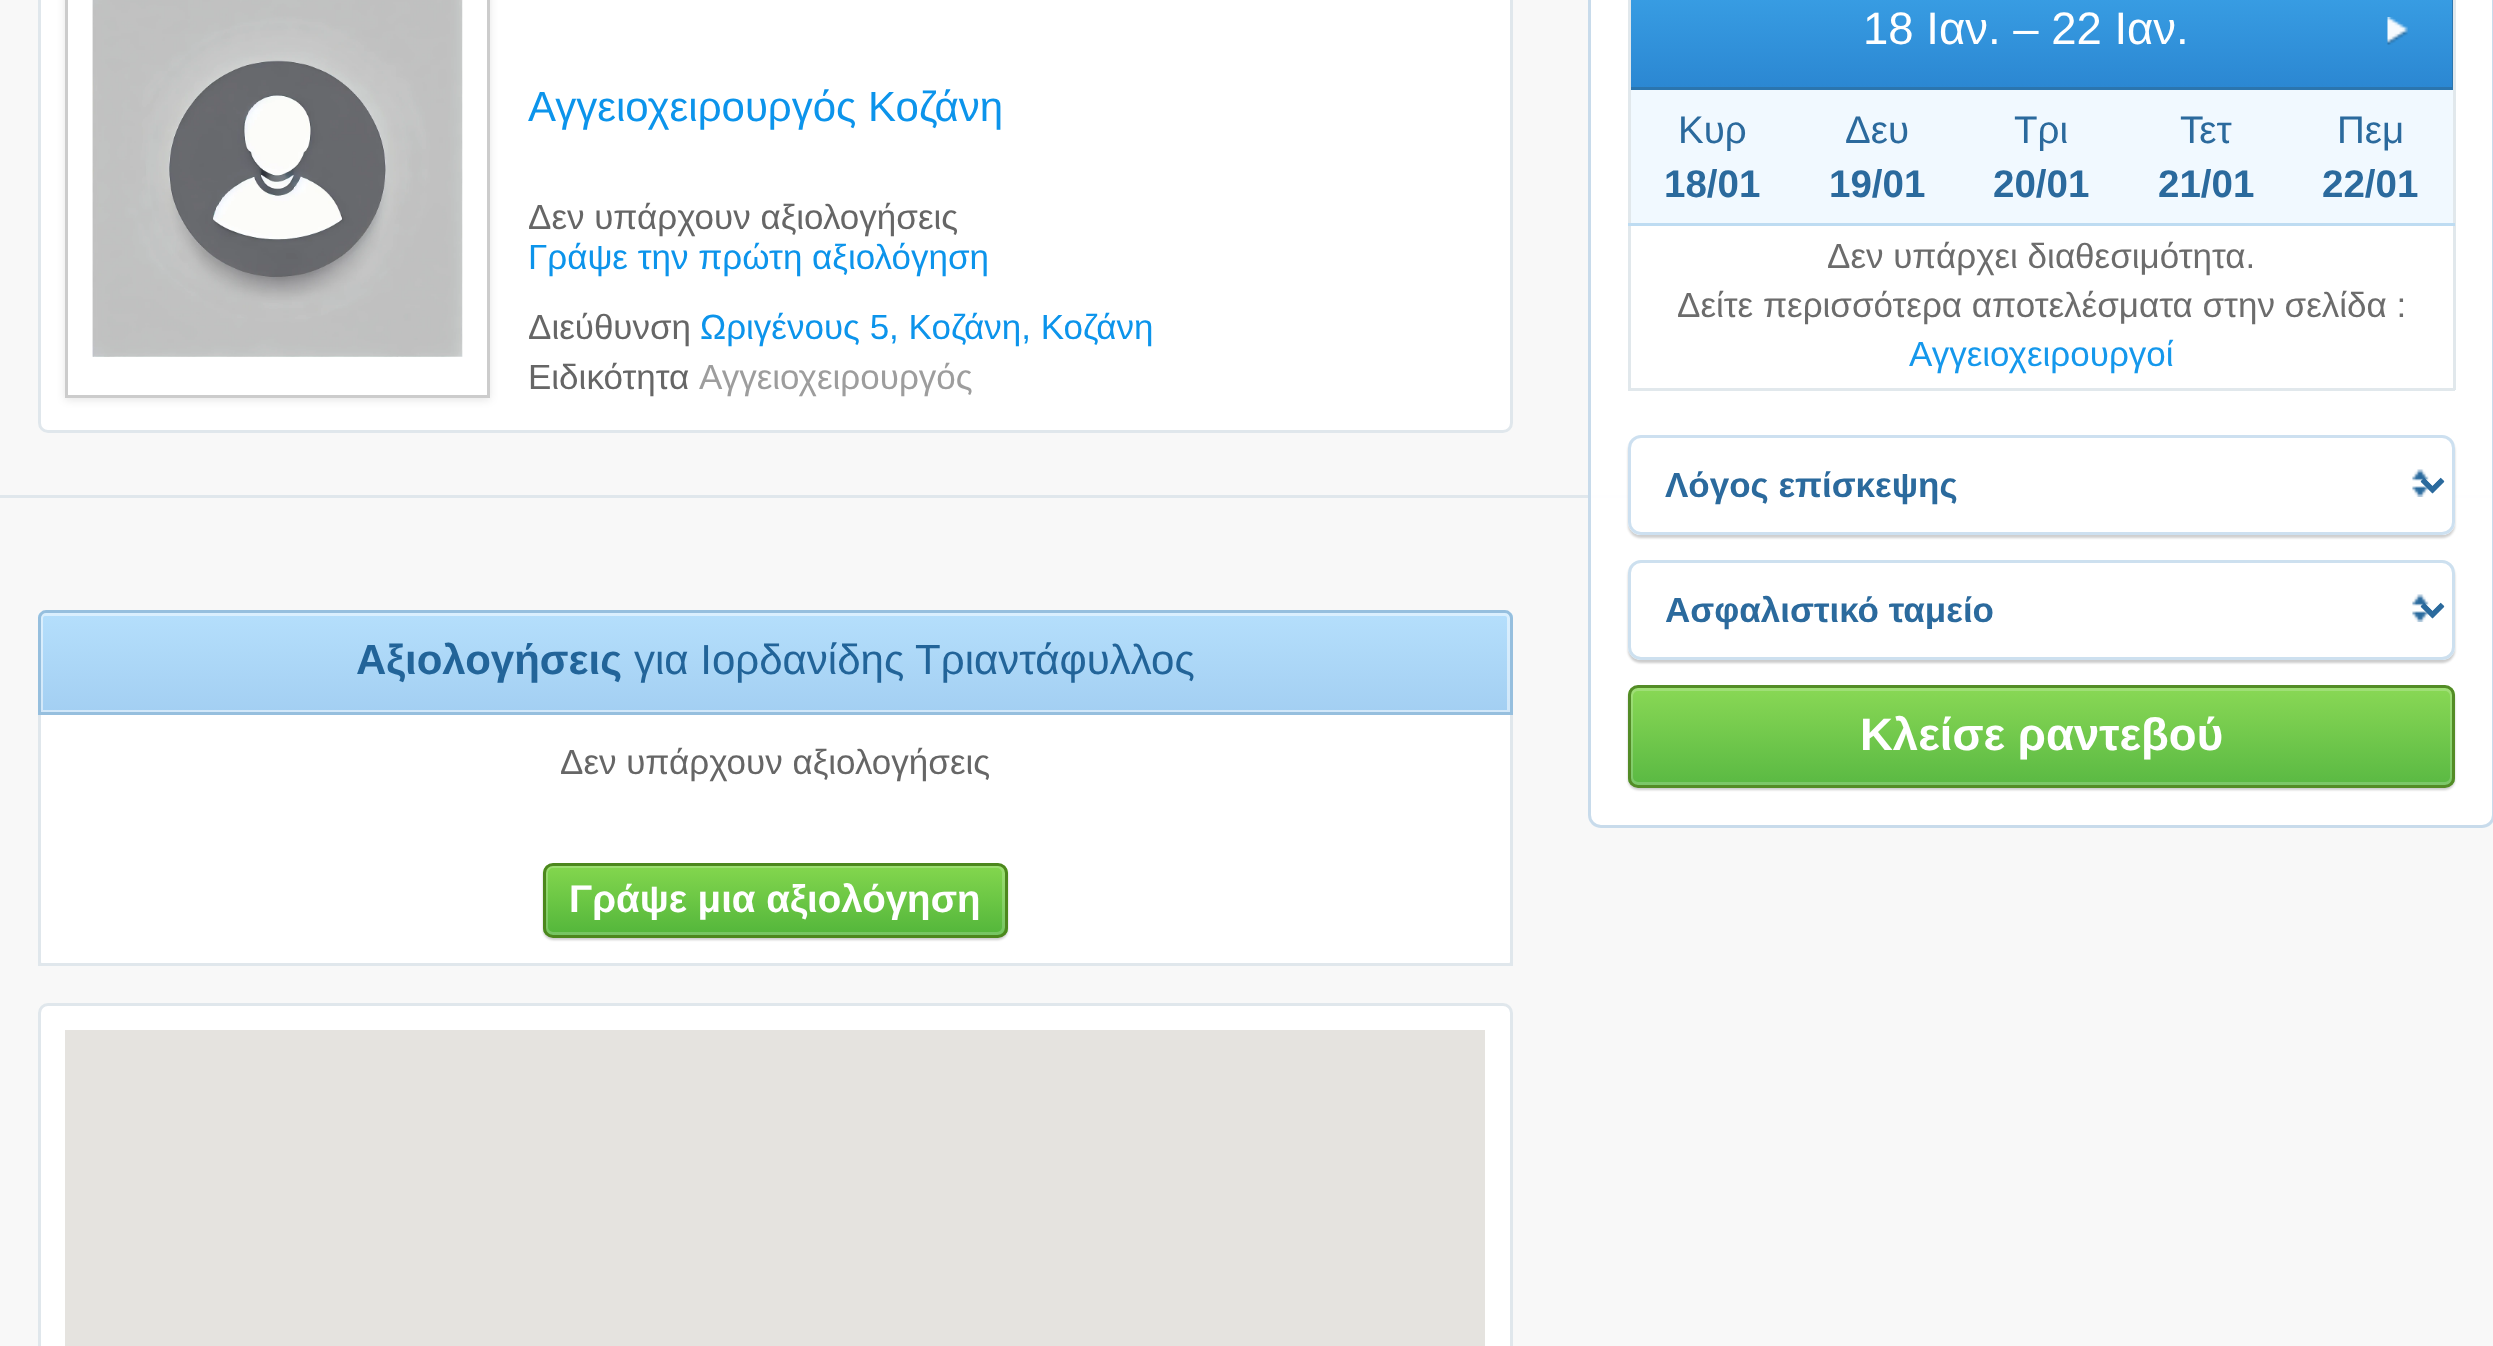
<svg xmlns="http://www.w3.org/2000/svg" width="2493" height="1346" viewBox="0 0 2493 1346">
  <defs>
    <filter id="blur1" x="-50%" y="-200%" width="200%" height="500%"><feGaussianBlur stdDeviation="4"/></filter>
    <linearGradient id="g1" gradientUnits="userSpaceOnUse" x1="2041" y1="-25" x2="2041" y2="88"><stop offset="0" stop-color="#3ba2e7"/><stop offset="1" stop-color="#2b87d2"/></linearGradient>
    <clipPath id="clip1"><path d="M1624 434H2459V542H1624ZM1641 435H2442C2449 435 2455 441 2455 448V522C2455 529 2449 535 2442 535H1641C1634 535 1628 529 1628 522V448C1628 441 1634 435 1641 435Z" clip-rule="evenodd"/></clipPath>
    <filter id="blur2" x="-50%" y="-200%" width="200%" height="500%"><feGaussianBlur stdDeviation="1"/></filter>
    <clipPath id="clip2"><rect x="1628" y="685" width="827" height="103" rx="10"/></clipPath>
    <linearGradient id="g2" gradientUnits="userSpaceOnUse" x1="2041" y1="688" x2="2041" y2="785"><stop offset="0" stop-color="#89d855"/><stop offset="1" stop-color="#5ab943"/></linearGradient>
    <clipPath id="clip3"><path d="M46 610H1505C1509.5 610 1513 613.5 1513 618V715H38V618C38 613.5 41.5 610 46 610Z"/></clipPath>
    <linearGradient id="g3" gradientUnits="userSpaceOnUse" x1="775" y1="612" x2="775" y2="713"><stop offset="0" stop-color="#b5dffc"/><stop offset="1" stop-color="#a3cff2"/></linearGradient>
    <clipPath id="clip4"><rect x="543" y="863" width="465" height="75" rx="10"/></clipPath>
    <linearGradient id="g4" gradientUnits="userSpaceOnUse" x1="775" y1="865" x2="775" y2="935"><stop offset="0" stop-color="#84d74e"/><stop offset="1" stop-color="#53b63b"/></linearGradient>
  </defs>
  <rect width="100%" height="100%" fill="#f8f8f8"/>
  <rect x="39.5" y="-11.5" width="1472" height="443" rx="8.5" fill="#ffffff" stroke="#e0e7ec" stroke-width="3"/>
  <rect x="65" y="-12" width="425" height="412" fill="#000000" fill-opacity="0.1" filter="url(#blur1)"/>
  <rect x="66.5" y="-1.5" width="422" height="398" fill="#ffffff" stroke="#cccccc" stroke-width="3"/>
  <image x="92" y="0" width="371" height="357" href="img1.png"/>
  <text x="528" y="121" font-family="Liberation Sans" font-size="42" fill="#0c94eb">Αγγειοχειρουργός Κοζάνη</text>
  <text x="528" y="229" font-family="Liberation Sans" font-size="35" fill="#666666">Δεν υπάρχουν αξιολογήσεις</text>
  <text x="528" y="269" font-family="Liberation Sans" font-size="35" fill="#0c94eb">Γράψε την πρώτη αξιολόγηση</text>
  <text x="528" y="339" font-family="Liberation Sans" font-size="35" fill="#666666">Διεύθυνση</text>
  <text x="700" y="339" font-family="Liberation Sans" font-size="35" fill="#0c94eb">Ωριγένους 5, Κοζάνη, Κοζάνη</text>
  <text x="528" y="389" font-family="Liberation Sans" font-size="35" fill="#666666">Ειδικότητα</text>
  <text x="699" y="389" font-family="Liberation Sans" font-size="35" fill="#9d9d9d">Αγγειοχειρουργός</text>
  <rect x="0" y="495" width="2493" height="3" fill="#e0e7ec"/>
  <rect x="1588" y="-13" width="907" height="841" rx="13" fill="#ffffff" fill-opacity="0.96"/>
  <rect x="1589.5" y="-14.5" width="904" height="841" rx="11.5" fill="none" stroke="#c6daea" stroke-opacity="0.96" stroke-width="3"/>
  <rect x="1631" y="0" width="821" height="87" fill="url(#g1)"/>
  <rect x="1629.5" y="-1.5" width="824" height="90" fill="none" stroke="#2b75ae" stroke-width="3"/>
  <rect x="2453" y="0" width="3" height="390" fill="#e1e8ec"/>
  <rect x="1628" y="388" width="827" height="3" fill="#e1e8ec"/>
  <rect x="1628" y="0" width="3" height="390" fill="#e1e8ec"/>
  <text x="1863" y="44" font-family="Liberation Sans" font-size="45.5" fill="#ffffff">18 Ιαν. – 22 Ιαν.</text>
  <image x="2387" y="17" width="21" height="28" href="img2.png"/>
  <rect x="1631" y="90" width="822" height="133" fill="#f1f9ff"/>
  <rect x="1628" y="223" width="827" height="3" fill="#bedcf2"/>
  <text x="1678" y="143" font-family="Liberation Sans" font-size="38.5" fill="#2b6a9d">Κυρ</text>
  <text x="1664" y="197" font-family="Liberation Sans" font-size="38.5" font-weight="bold" fill="#2b6a9d">18/01</text>
  <text x="1845" y="143" font-family="Liberation Sans" font-size="38.5" fill="#2b6a9d">Δευ</text>
  <text x="1829" y="197" font-family="Liberation Sans" font-size="38.5" font-weight="bold" fill="#2b6a9d">19/01</text>
  <text x="2014" y="143" font-family="Liberation Sans" font-size="38.5" fill="#2b6a9d">Τρι</text>
  <text x="1993" y="197" font-family="Liberation Sans" font-size="38.5" font-weight="bold" fill="#2b6a9d">20/01</text>
  <text x="2180" y="143" font-family="Liberation Sans" font-size="38.5" fill="#2b6a9d">Τετ</text>
  <text x="2158" y="197" font-family="Liberation Sans" font-size="38.5" font-weight="bold" fill="#2b6a9d">21/01</text>
  <text x="2337" y="143" font-family="Liberation Sans" font-size="38.5" fill="#2b6a9d">Πεμ</text>
  <text x="2322" y="197" font-family="Liberation Sans" font-size="38.5" font-weight="bold" fill="#2b6a9d">22/01</text>
  <text x="1827" y="268" font-family="Liberation Sans" font-size="35" fill="#6c6c6c">Δεν υπάρχει διαθεσιμότητα.</text>
  <text x="1677" y="317" font-family="Liberation Sans" font-size="35" fill="#6c6c6c">Δείτε περισσότερα αποτελέσματα στην σελίδα :</text>
  <text x="1909" y="366" font-family="Liberation Sans" font-size="35" fill="#1598ec">Αγγειοχειρουργοί</text>
  <g clip-path="url(#clip1)">
    <rect x="1628" y="438" width="827" height="100" rx="13" fill="#000000" fill-opacity="0.19" filter="url(#blur2)"/>
  </g>
  <rect x="1628" y="435" width="827" height="100" rx="13" fill="#ffffff" fill-opacity="0.96"/>
  <image x="2412" y="469" width="33" height="28" href="img3.png"/>
  <rect x="1629.5" y="436.5" width="824" height="97" rx="11.5" fill="none" stroke="#cbdfef" stroke-opacity="0.96" stroke-width="3"/>
  <path d="M2422.5 480L2432.5 490L2442.5 480" fill="none" stroke="#2b6a9d" stroke-width="5"/>
  <text x="1665" y="497" font-family="Liberation Sans" font-size="35" font-weight="bold" fill="#2b6a9d">Λόγος επίσκεψης</text>
  <rect x="1628" y="563" width="827" height="100" rx="13" fill="#0a0a0a" fill-opacity="0.2" filter="url(#blur2)"/>
  <rect x="1628" y="560" width="827" height="100" rx="13" fill="#ffffff"/>
  <image x="2412" y="594" width="33" height="28" href="img3.png"/>
  <rect x="1629.5" y="561.5" width="824" height="97" rx="11.5" fill="none" stroke="#cde0ef" stroke-width="3"/>
  <path d="M2422.5 605L2432.5 615L2442.5 605" fill="none" stroke="#2b6a9d" stroke-width="5"/>
  <text x="1665" y="622" font-family="Liberation Sans" font-size="35" font-weight="bold" fill="#2b6a9d">Ασφαλιστικό ταμείο</text>
  <rect x="1628" y="688" width="827" height="102" rx="10" fill="#0a0a0a" fill-opacity="0.2" filter="url(#blur2)"/>
  <g clip-path="url(#clip2)">
    <rect x="1628" y="688" width="827" height="97" fill="url(#g2)"/>
  </g>
  <rect x="1631.5" y="689.5" width="820" height="94" rx="6.5" fill="none" stroke="#ffffff" stroke-opacity="0.2" stroke-width="3"/>
  <rect x="1629.5" y="686.5" width="824" height="100" rx="8.5" fill="none" stroke="#538c26" stroke-width="3"/>
  <text x="1860" y="750" font-family="Liberation Sans" font-size="45.5" font-weight="bold" fill="#ffffff">Κλείσε ραντεβού</text>
  <rect x="38" y="610" width="1475" height="355" rx="10" fill="#ffffff"/>
  <g clip-path="url(#clip3)">
    <rect x="38" y="613" width="1475" height="99" fill="url(#g3)"/>
  </g>
  <path d="M45 614.5H1505C1507 614.5 1508.5 616 1508.5 618V711.5H41.5V618C41.5 616 43 614.5 45 614.5Z" fill="none" stroke="#ffffff" stroke-opacity="0.5" stroke-width="3"/>
  <path d="M46 611.5H1505C1508.5 611.5 1511.5 614.5 1511.5 618V713.5H39.5V618C39.5 614.5 42.5 611.5 46 611.5Z" fill="none" stroke="#96bfde" stroke-width="3"/>
  <text x="356" y="674" font-family="Liberation Sans" font-size="42" font-weight="bold" fill="#226499">Αξιολογήσεις</text>
  <text x="634" y="674" font-family="Liberation Sans" font-size="42" fill="#226499">για Ιορδανίδης Τριαντάφυλλος</text>
  <rect x="1510" y="715" width="3" height="250" fill="#e0e7ec"/>
  <rect x="38" y="963" width="1475" height="3" fill="#e0e7ec"/>
  <rect x="38" y="715" width="3" height="250" fill="#e0e7ec"/>
  <text x="560" y="774" font-family="Liberation Sans" font-size="35" fill="#666666">Δεν υπάρχουν αξιολογήσεις</text>
  <rect x="543" y="865" width="465" height="75" rx="10" fill="#000000" fill-opacity="0.2" filter="url(#blur2)"/>
  <g clip-path="url(#clip4)">
    <rect x="543" y="865" width="465" height="70" fill="url(#g4)"/>
  </g>
  <rect x="546.5" y="866.5" width="457" height="67" rx="6.5" fill="none" stroke="#ffffff" stroke-opacity="0.2" stroke-width="3"/>
  <rect x="544.5" y="864.5" width="462" height="72" rx="8.5" fill="none" stroke="#4c871d" stroke-width="3"/>
  <text x="569" y="912" font-family="Liberation Sans" font-size="38.5" font-weight="bold" fill="#ffffff">Γράψε μια αξιολόγηση</text>
  <rect x="39.5" y="1004.5" width="1472" height="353" rx="8.5" fill="#ffffff" stroke="#e0e7ec" stroke-width="3"/>
  <rect x="65" y="1030" width="1420" height="316" fill="#e5e3df"/>
</svg>
